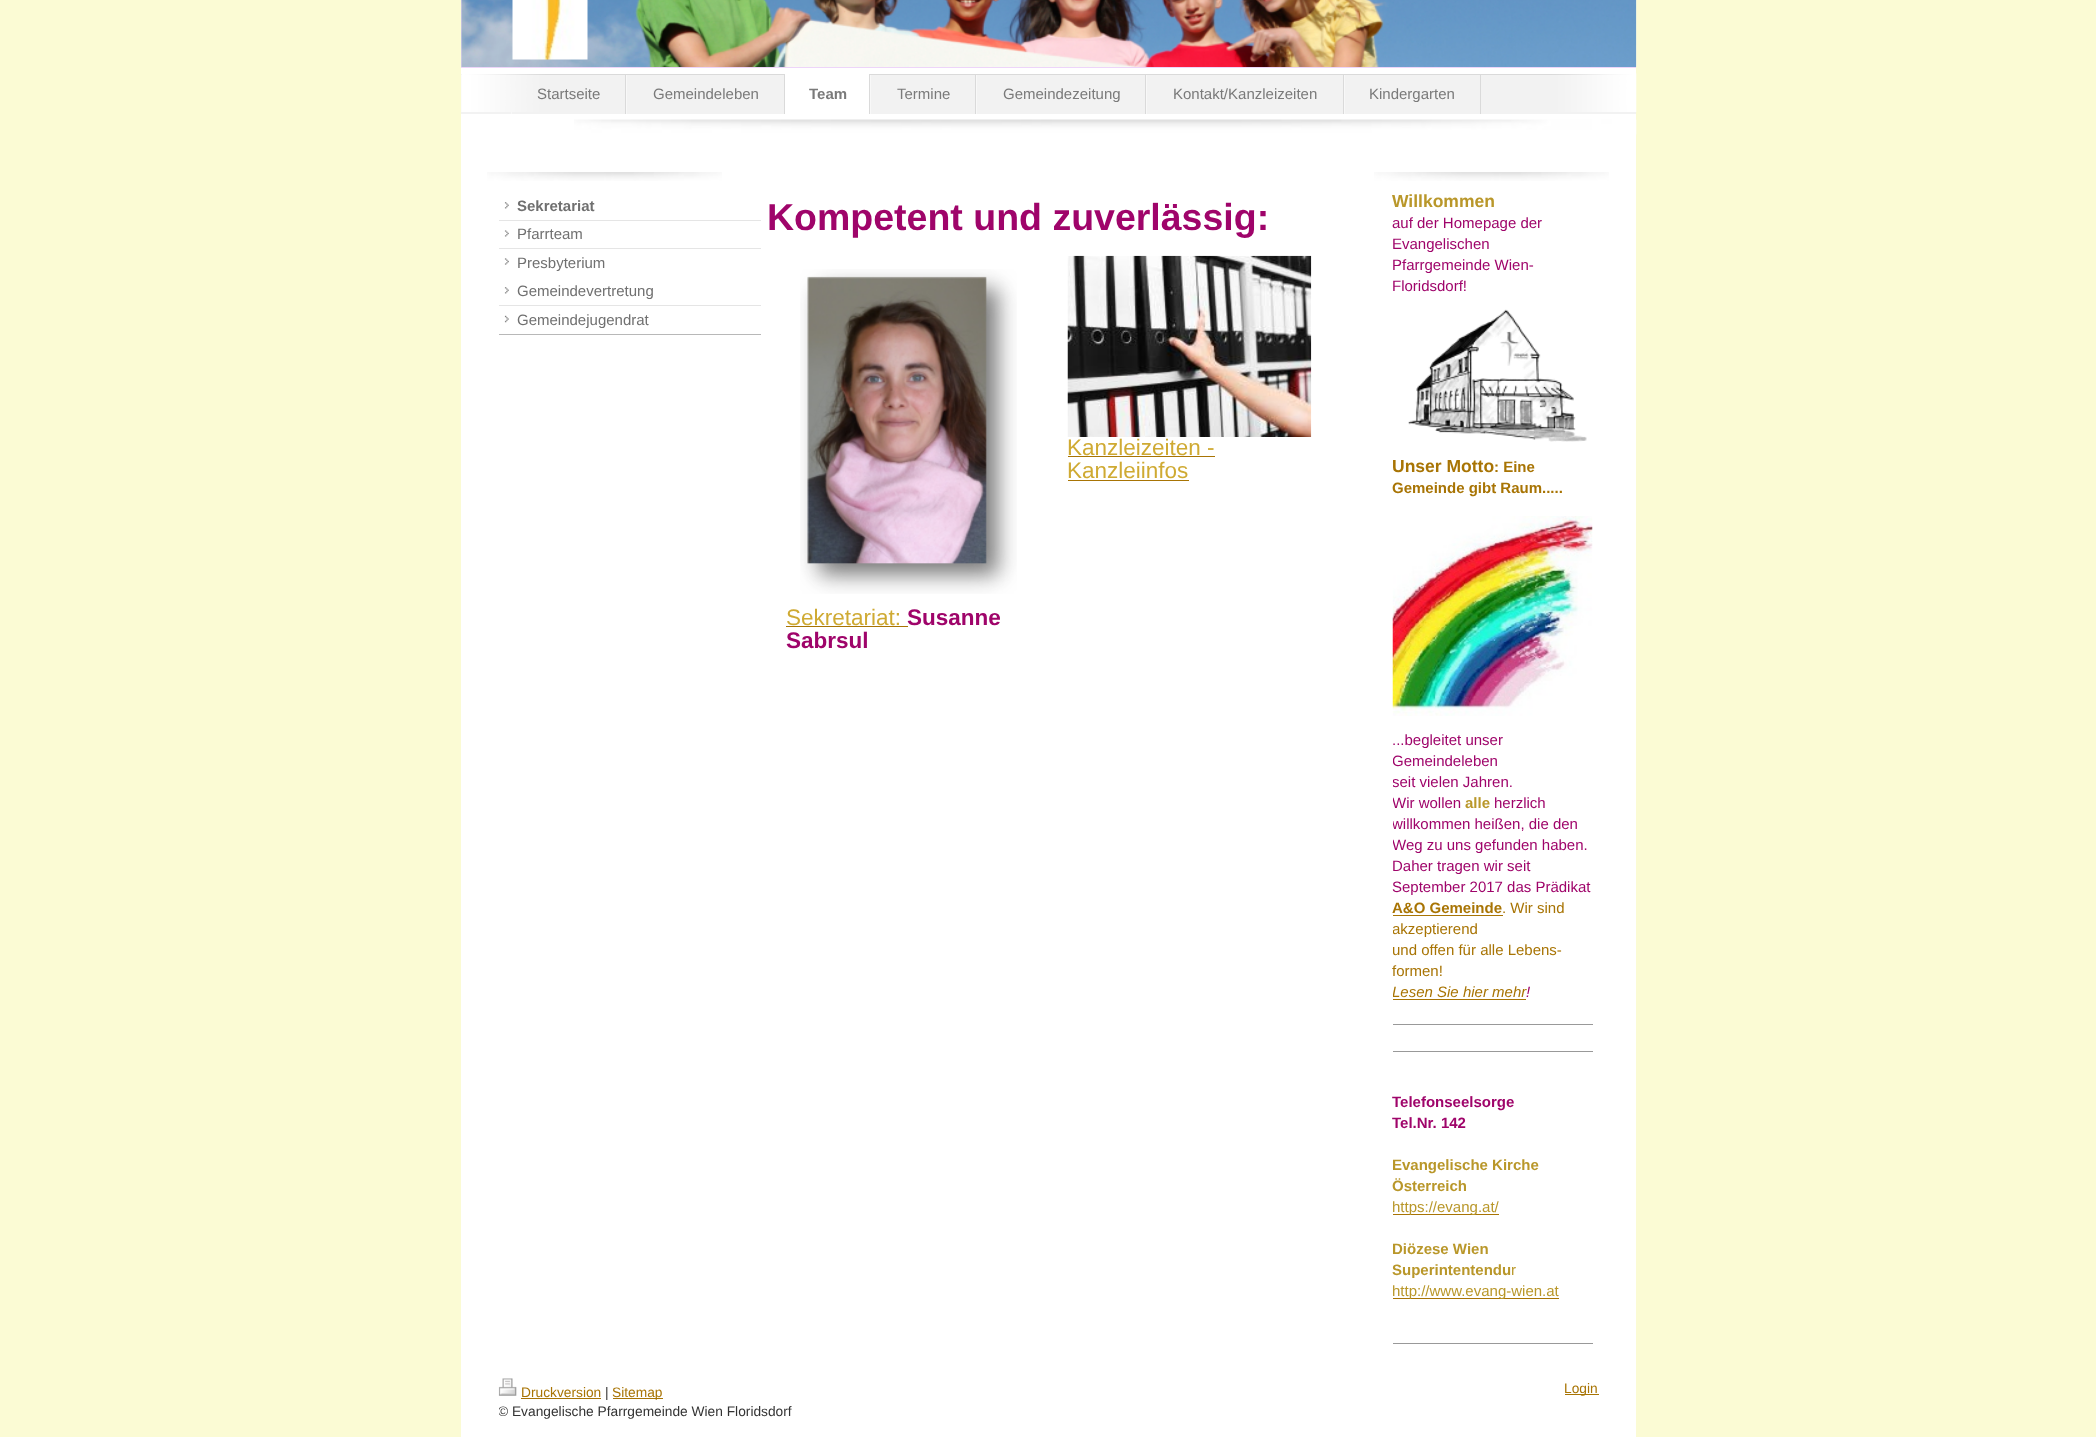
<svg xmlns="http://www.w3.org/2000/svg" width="2096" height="1437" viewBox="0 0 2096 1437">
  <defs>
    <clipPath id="clip1"><rect x="1393" y="511" width="200" height="493"/></clipPath>
    <clipPath id="clip2"><rect x="499" y="1379" width="1100" height="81"/></clipPath>
  </defs>
  <rect width="100%" height="100%" fill="#fbfbd4"/>
  <rect x="461" y="68" width="1175" height="1369" fill="#ffffff"/>
  <rect x="461" y="0" width="1175" height="68" fill="#edd5f9"/>
  <image x="1636" y="0" width="1" height="67" href="img3.png"/>
  <image x="1636" y="0" width="1" height="67" href="img4.png"/>
  <image x="461" y="0" width="1176" height="67" href="img1.png"/>
  <image x="512" y="0" width="76" height="60" href="img2.png"/>
  <rect x="461" y="75" width="1175" height="39" fill="#f2f2f2"/>
  <rect x="461" y="74" width="1175" height="1" fill="#dadada"/>
  <image x="461" y="73" width="1176" height="39" href="img5.png"/>
  <rect x="625" y="75" width="1" height="39" fill="#dadada"/>
  <rect x="511" y="112" width="1" height="2" fill="#f8f8f8"/>
  <text x="537" y="99" font-family="Liberation Sans" font-size="15" fill="#7a7a7a">Startseite</text>
  <rect x="784" y="75" width="1" height="39" fill="#dadada"/>
  <rect x="626" y="75" width="1" height="39" fill="#f8f8f8"/>
  <text x="653" y="99" font-family="Liberation Sans" font-size="15" fill="#7a7a7a">Gemeindeleben</text>
  <rect x="785" y="74" width="84" height="40" fill="#ffffff"/>
  <rect x="869" y="74" width="1" height="40" fill="#dadada"/>
  <text x="809" y="99" font-family="Liberation Sans" font-size="15" font-weight="bold" fill="#7a7a7a">Team</text>
  <rect x="975" y="75" width="1" height="39" fill="#dadada"/>
  <rect x="870" y="75" width="1" height="39" fill="#f8f8f8"/>
  <text x="897" y="99" font-family="Liberation Sans" font-size="15" fill="#7a7a7a">Termine</text>
  <rect x="1145" y="75" width="1" height="39" fill="#dadada"/>
  <rect x="976" y="75" width="1" height="39" fill="#f8f8f8"/>
  <text x="1003" y="99" font-family="Liberation Sans" font-size="15" fill="#7a7a7a">Gemeindezeitung</text>
  <rect x="1343" y="75" width="1" height="39" fill="#dadada"/>
  <rect x="1146" y="75" width="1" height="39" fill="#f8f8f8"/>
  <text x="1173" y="99" font-family="Liberation Sans" font-size="15" fill="#7a7a7a">Kontakt/Kanzleizeiten</text>
  <rect x="1480" y="75" width="1" height="39" fill="#dadada"/>
  <rect x="1344" y="75" width="1" height="39" fill="#f8f8f8"/>
  <text x="1369" y="99" font-family="Liberation Sans" font-size="15" fill="#7a7a7a">Kindergarten</text>
  <image x="574" y="119" width="1063" height="16" href="img6.png"/>
  <image x="487" y="172" width="235" height="9" href="img7.png"/>
  <rect x="499" y="202" width="262" height="19" fill="#707070"/>
  <image x="499" y="193" width="262" height="28" href="img8.png"/>
  <text x="517" y="211" font-family="Liberation Sans" font-size="15" font-weight="bold" fill="#707070">Sekretariat</text>
  <rect x="499" y="230" width="262" height="19" fill="#707070"/>
  <image x="499" y="220" width="262" height="29" href="img9.png"/>
  <text x="517" y="239" font-family="Liberation Sans" font-size="15" fill="#707070">Pfarrteam</text>
  <rect x="504" y="258" width="5" height="7" fill="#707070"/>
  <image x="499" y="248" width="262" height="29" href="img10.png"/>
  <text x="517" y="268" font-family="Liberation Sans" font-size="15" fill="#707070">Presbyterium</text>
  <rect x="499" y="287" width="262" height="19" fill="#707070"/>
  <image x="499" y="277" width="262" height="29" href="img11.png"/>
  <text x="517" y="296" font-family="Liberation Sans" font-size="15" fill="#707070">Gemeindevertretung</text>
  <rect x="499" y="315" width="262" height="20" fill="#707070"/>
  <image x="499" y="305" width="262" height="30" href="img12.png"/>
  <text x="517" y="325" font-family="Liberation Sans" font-size="15" fill="#707070">Gemeindejugendrat</text>
  <text x="767" y="230" font-family="Liberation Sans" font-size="37.5" font-weight="bold" fill="#9f046a">Kompetent und zuverlässig:</text>
  <image x="1067" y="255" width="245" height="182" href="img13.png"/>
  <text x="1067" y="455" font-family="Liberation Sans" font-size="22.5" fill="#cfaa33">Kanzleizeiten -</text>
  <rect x="1068" y="456" width="147" height="1" fill="#a87404"/>
  <text x="1067" y="478" font-family="Liberation Sans" font-size="22.5" fill="#cfaa33">Kanzleiinfos</text>
  <rect x="1068" y="480" width="121" height="1" fill="#a87404"/>
  <image x="800" y="269" width="217" height="325" href="img14.png"/>
  <text x="786" y="625" font-family="Liberation Sans" font-size="22.5" fill="#cfaa33">Sekretariat:</text>
  <rect x="786" y="626" width="122" height="1" fill="#a87404"/>
  <text x="907" y="625" font-family="Liberation Sans" font-size="22.5" font-weight="bold" fill="#9f046a">Susanne</text>
  <text x="786" y="648" font-family="Liberation Sans" font-size="22.5" font-weight="bold" fill="#9f046a">Sabrsul</text>
  <image x="1374" y="172" width="235" height="9" href="img15.png"/>
  <text x="1392" y="207" font-family="Liberation Sans" font-size="17.5" font-weight="bold" fill="#b9972a">Willkommen</text>
  <text x="1392" y="228" font-family="Liberation Sans" font-size="15" fill="#9f046a">auf der Homepage der</text>
  <text x="1392" y="249" font-family="Liberation Sans" font-size="15" fill="#9f046a">Evangelischen</text>
  <text x="1392" y="270" font-family="Liberation Sans" font-size="15" fill="#9f046a">Pfarrgemeinde Wien-</text>
  <text x="1392" y="291" font-family="Liberation Sans" font-size="15" fill="#9f046a">Floridsdorf!</text>
  <image x="1408" y="309" width="179" height="133" href="img16.png"/>
  <text x="1392" y="472" font-family="Liberation Sans" font-size="17.5" font-weight="bold" fill="#a87404">Unser Motto</text>
  <text x="1494" y="472" font-family="Liberation Sans" font-size="15" font-weight="bold" fill="#a87404">: Eine</text>
  <text x="1392" y="493" font-family="Liberation Sans" font-size="15" font-weight="bold" fill="#a87404">Gemeinde gibt Raum.....</text>
  <image x="1392" y="516" width="201" height="200" href="img17.png"/>
  <text x="1392" y="745" font-family="Liberation Sans" font-size="15" fill="#9f046a">...begleitet unser</text>
  <g clip-path="url(#clip1)">
    <text x="1392" y="766" font-family="Liberation Sans" font-size="15" fill="#9f046a">Gemeindeleben</text>
    <text x="1392" y="787" font-family="Liberation Sans" font-size="15" fill="#9f046a">seit vielen Jahren.</text>
    <text x="1392" y="808" font-family="Liberation Sans" font-size="15" fill="#9f046a">Wir wollen</text>
  </g>
  <text x="1465" y="808" font-family="Liberation Sans" font-size="15" font-weight="bold" fill="#b9972a">alle</text>
  <text x="1494" y="808" font-family="Liberation Sans" font-size="15" fill="#9f046a">herzlich</text>
  <g clip-path="url(#clip1)">
    <text x="1392" y="829" font-family="Liberation Sans" font-size="15" fill="#9f046a">willkommen heißen, die den</text>
    <text x="1392" y="850" font-family="Liberation Sans" font-size="15" fill="#9f046a">Weg zu uns gefunden haben.</text>
  </g>
  <text x="1392" y="871" font-family="Liberation Sans" font-size="15" fill="#9f046a">Daher tragen wir seit</text>
  <text x="1392" y="892" font-family="Liberation Sans" font-size="15" fill="#9f046a">September 2017 das Prädikat</text>
  <text x="1392" y="913" font-family="Liberation Sans" font-size="15" font-weight="bold" fill="#a87404">A&amp;O Gemeinde</text>
  <rect x="1393" y="915" width="110" height="1" fill="#a87404"/>
  <text x="1502" y="913" font-family="Liberation Sans" font-size="15" fill="#a87404">. Wir sind</text>
  <g clip-path="url(#clip1)">
    <text x="1392" y="934" font-family="Liberation Sans" font-size="15" fill="#a87404">akzeptierend</text>
    <text x="1392" y="955" font-family="Liberation Sans" font-size="15" fill="#a87404">und offen für alle Lebens-</text>
  </g>
  <text x="1392" y="976" font-family="Liberation Sans" font-size="15" fill="#a87404">formen!</text>
  <g clip-path="url(#clip1)">
    <text x="1392" y="997" font-family="Liberation Sans" font-size="15" font-style="italic" fill="#a87404">Lesen Sie hier mehr</text>
  </g>
  <rect x="1393" y="999" width="133" height="1" fill="#a87404"/>
  <text x="1526" y="997" font-family="Liberation Sans" font-size="15" font-style="italic" fill="#9f046a">!</text>
  <rect x="1393" y="1024" width="200" height="1" fill="#999999"/>
  <rect x="1393" y="1051" width="200" height="1" fill="#999999"/>
  <text x="1392" y="1107" font-family="Liberation Sans" font-size="15" font-weight="bold" fill="#9f046a">Telefonseelsorge</text>
  <text x="1392" y="1128" font-family="Liberation Sans" font-size="15" font-weight="bold" fill="#9f046a">Tel.Nr. 142</text>
  <text x="1392" y="1170" font-family="Liberation Sans" font-size="15" font-weight="bold" fill="#b9972a">Evangelische Kirche</text>
  <text x="1392" y="1191" font-family="Liberation Sans" font-size="15" font-weight="bold" fill="#b9972a">Österreich</text>
  <rect x="1393" y="1214" width="106" height="1" fill="#a87404"/>
  <text x="1392" y="1212" font-family="Liberation Sans" font-size="15" fill="#b9972a">https://evang.at/</text>
  <text x="1392" y="1254" font-family="Liberation Sans" font-size="15" font-weight="bold" fill="#b9972a">Diözese Wien</text>
  <text x="1392" y="1275" font-family="Liberation Sans" font-size="15" font-weight="bold" fill="#b9972a">Superintentendu</text>
  <text x="1511" y="1275" font-family="Liberation Sans" font-size="15" fill="#b9972a">r</text>
  <rect x="1393" y="1298" width="166" height="1" fill="#a87404"/>
  <text x="1392" y="1296" font-family="Liberation Sans" font-size="15" fill="#b9972a">http://www.evang-wien.at</text>
  <rect x="1393" y="1343" width="200" height="1" fill="#999999"/>
  <image x="498" y="1378" width="19" height="18" href="img18.png"/>
  <text x="521" y="1397" font-family="Liberation Sans" font-size="13.75" fill="#a87404">Druckversion</text>
  <rect x="521" y="1398" width="80" height="1" fill="#a87404"/>
  <text x="605" y="1397" font-family="Liberation Sans" font-size="13.75" fill="#333333">|</text>
  <rect x="613" y="1398" width="50" height="1" fill="#a87404"/>
  <text x="612" y="1397" font-family="Liberation Sans" font-size="13.75" fill="#a87404">Sitemap</text>
  <g clip-path="url(#clip2)">
    <text x="498" y="1416" font-family="Liberation Sans" font-size="13.75" fill="#333333">© Evangelische Pfarrgemeinde Wien Floridsdorf</text>
  </g>
  <rect x="1565" y="1394" width="34" height="1" fill="#a87404"/>
  <text x="1564" y="1393" font-family="Liberation Sans" font-size="13.75" fill="#a87404">Login</text>
</svg>
